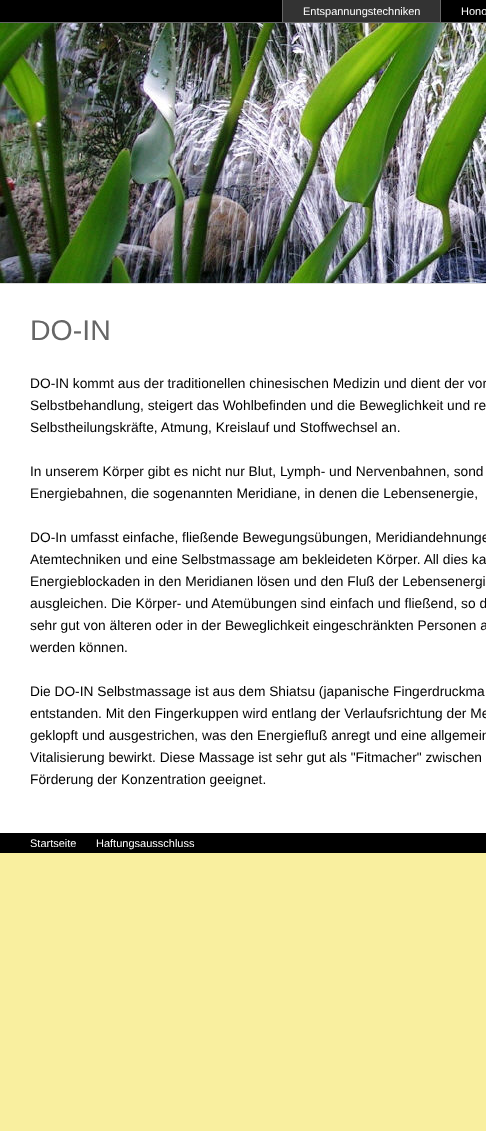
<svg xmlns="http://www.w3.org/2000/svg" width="486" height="1131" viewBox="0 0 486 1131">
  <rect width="100%" height="100%" fill="#f9ef9f"/>
  <rect x="0" y="284" width="486" height="549" fill="#ffffff"/>
  <rect x="0" y="0" width="486" height="22" fill="#000000"/>
  <rect x="283" y="0" width="157" height="22" fill="#333333"/>
  <text x="303" y="15" font-family="Liberation Sans" font-size="11" fill="#ffffff">Entspannungstechniken</text>
  <rect x="282" y="0" width="1" height="22" fill="#666666"/>
  <text x="461" y="15" font-family="Liberation Sans" font-size="11" fill="#ffffff">Hono</text>
  <rect x="440" y="0" width="1" height="22" fill="#666666"/>
  <image x="0" y="23" width="486" height="260" href="img1.png"/>
  <rect x="0" y="22" width="486" height="1" fill="#666666"/>
  <rect x="0" y="283" width="486" height="1" fill="#dedede"/>
  <text x="30" y="340" font-family="Liberation Sans" font-size="28.5" fill="#666666">DO-IN</text>
  <text x="30" y="388" font-family="Liberation Sans" font-size="13.75" fill="#000000">DO-IN kommt aus der traditionellen chinesischen Medizin und dient der vor</text>
  <text x="30" y="410" font-family="Liberation Sans" font-size="13.75" fill="#000000">Selbstbehandlung, steigert das Wohlbefinden und die Beweglichkeit und re</text>
  <text x="30" y="432" font-family="Liberation Sans" font-size="13.75" fill="#000000">Selbstheilungskräfte, Atmung, Kreislauf und Stoffwechsel an.</text>
  <text x="30" y="476" font-family="Liberation Sans" font-size="13.75" fill="#000000">In unserem Körper gibt es nicht nur Blut, Lymph- und Nervenbahnen, sond</text>
  <text x="30" y="498" font-family="Liberation Sans" font-size="13.75" fill="#000000">Energiebahnen, die sogenannten Meridiane, in denen die Lebensenergie,</text>
  <text x="30" y="542" font-family="Liberation Sans" font-size="13.75" fill="#000000">DO-In umfasst einfache, fließende Bewegungsübungen, Meridiandehnunge</text>
  <text x="30" y="564" font-family="Liberation Sans" font-size="13.75" fill="#000000">Atemtechniken und eine Selbstmassage am bekleideten Körper. All dies ka</text>
  <text x="30" y="586" font-family="Liberation Sans" font-size="13.75" fill="#000000">Energieblockaden in den Meridianen lösen und den Fluß der Lebensenergi</text>
  <text x="30" y="608" font-family="Liberation Sans" font-size="13.75" fill="#000000">ausgleichen. Die Körper- und Atemübungen sind einfach und fließend, so d</text>
  <text x="30" y="630" font-family="Liberation Sans" font-size="13.75" fill="#000000">sehr gut von älteren oder in der Beweglichkeit eingeschränkten Personen a</text>
  <text x="30" y="652" font-family="Liberation Sans" font-size="13.75" fill="#000000">werden können.</text>
  <text x="30" y="696" font-family="Liberation Sans" font-size="13.75" fill="#000000">Die DO-IN Selbstmassage ist aus dem Shiatsu (japanische Fingerdruckma</text>
  <text x="30" y="718" font-family="Liberation Sans" font-size="13.75" fill="#000000">entstanden. Mit den Fingerkuppen wird entlang der Verlaufsrichtung der Me</text>
  <text x="30" y="740" font-family="Liberation Sans" font-size="13.75" fill="#000000">geklopft und ausgestrichen, was den Energiefluß anregt und eine allgemein</text>
  <text x="30" y="762" font-family="Liberation Sans" font-size="13.75" fill="#000000">Vitalisierung bewirkt. Diese Massage ist sehr gut als "Fitmacher" zwischen</text>
  <text x="30" y="784" font-family="Liberation Sans" font-size="13.75" fill="#000000">Förderung der Konzentration geeignet.</text>
  <rect x="0" y="833" width="486" height="20" fill="#000000"/>
  <text x="30" y="847" font-family="Liberation Sans" font-size="11" fill="#ffffff">Startseite</text>
  <text x="96" y="847" font-family="Liberation Sans" font-size="11" fill="#ffffff">Haftungsausschluss</text>
</svg>
